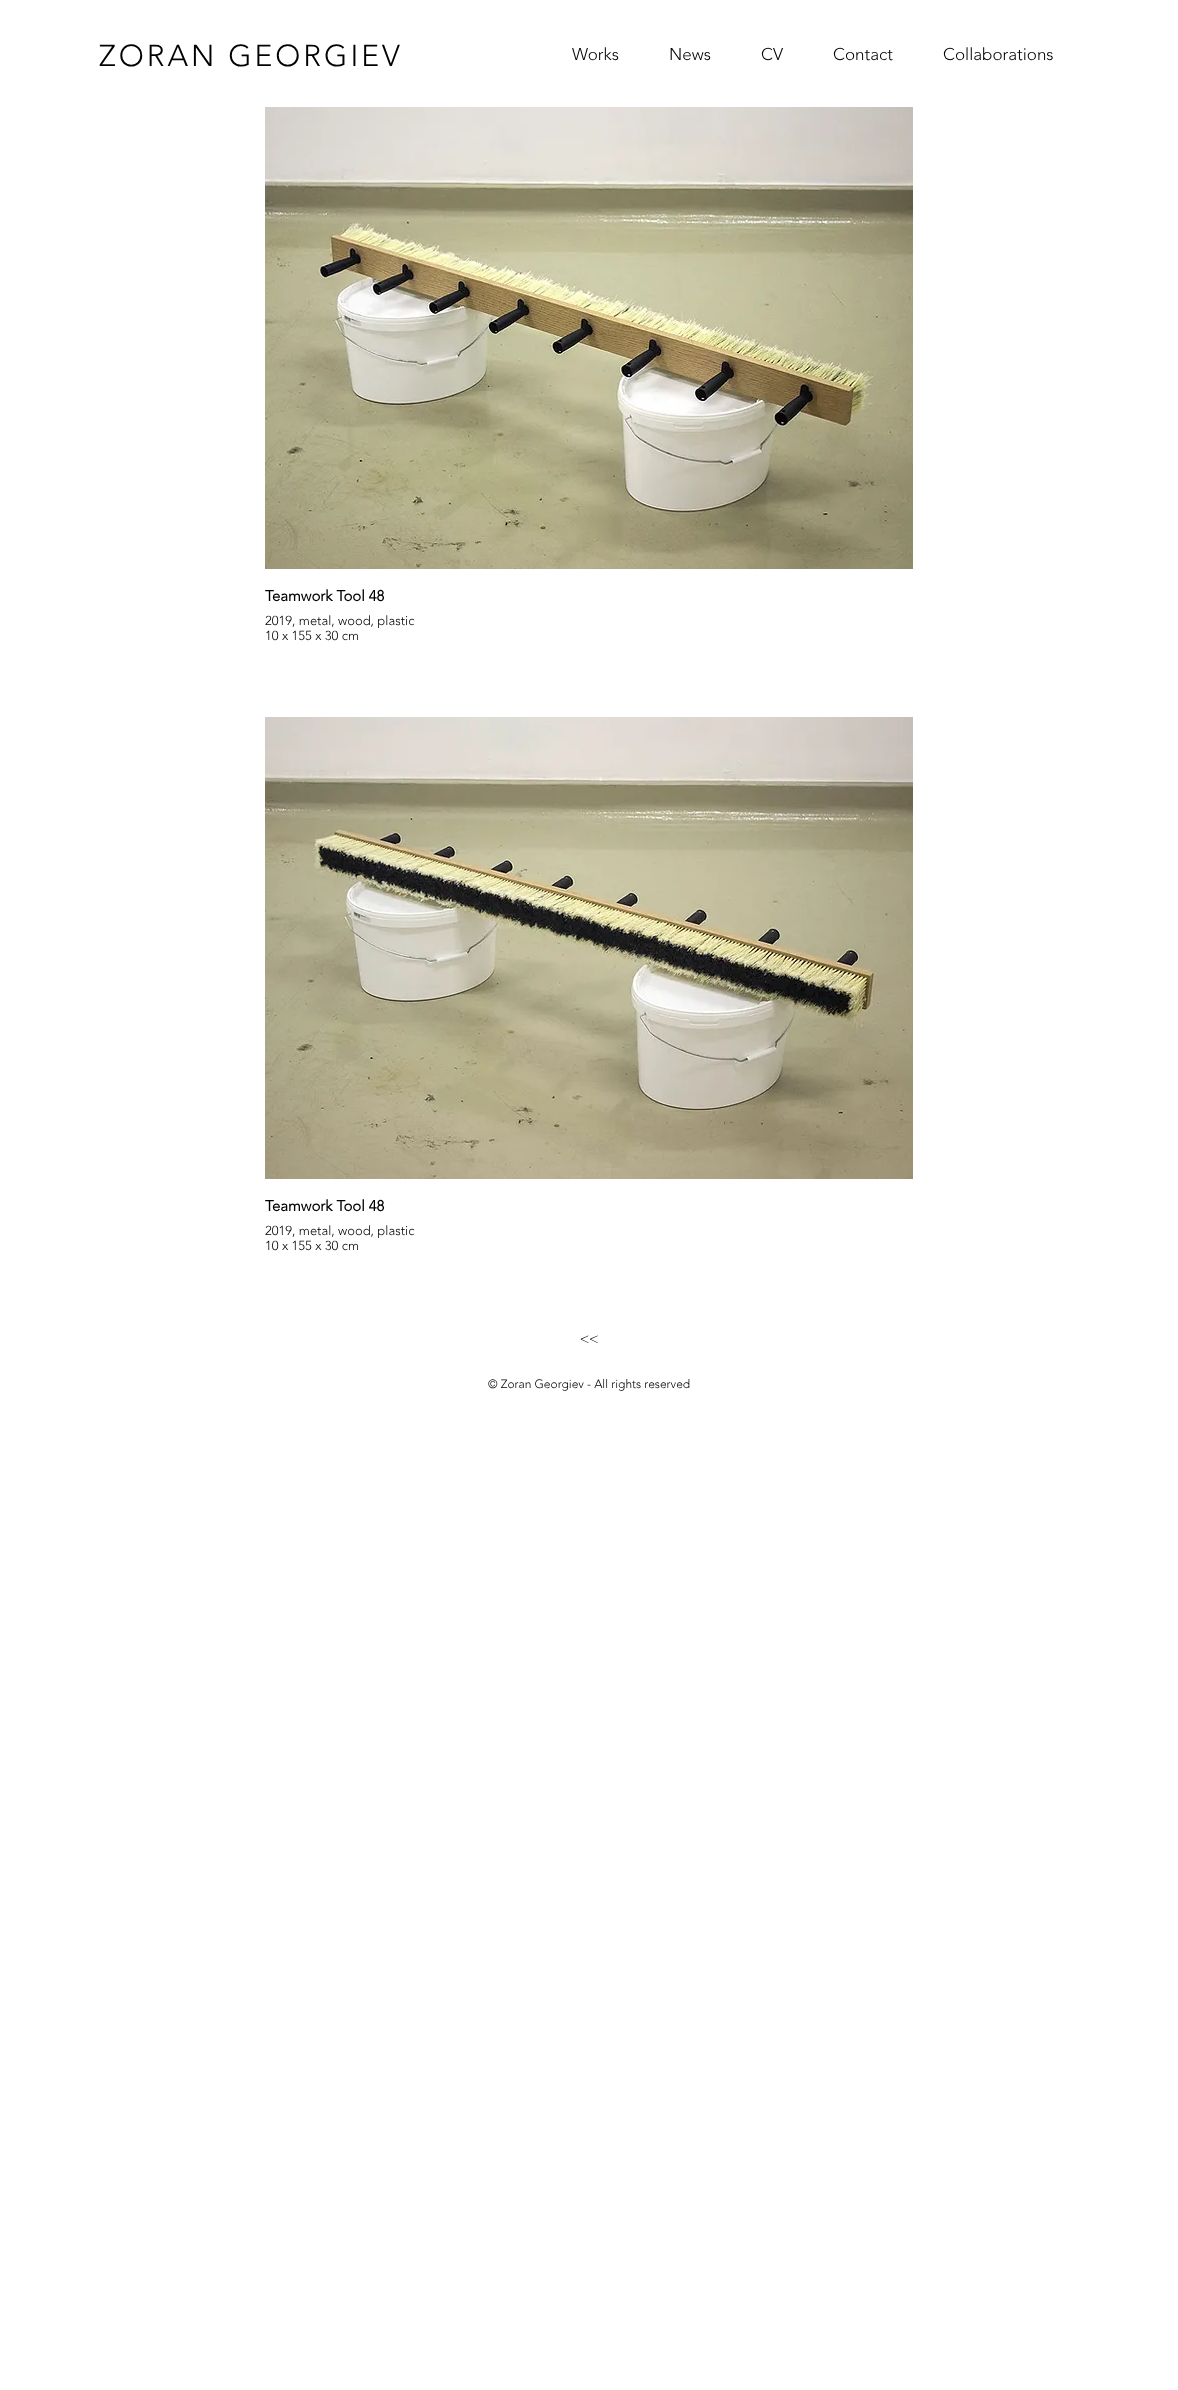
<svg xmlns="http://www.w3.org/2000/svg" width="1178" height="2390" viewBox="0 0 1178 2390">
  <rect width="100%" height="100%" fill="#ffffff"/>
  <text x="99" y="66" font-family="'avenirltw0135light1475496'" font-size="30" font-weight="300" letter-spacing="3" fill="#000000">ZORAN GEORGIEV</text>
  <text x="572" y="60" font-family="'avenirltw0135light1475496'" font-size="17" font-weight="300" fill="#000000">Works</text>
  <text x="669" y="60" font-family="'avenirltw0135light1475496'" font-size="17" font-weight="300" fill="#000000">News</text>
  <text x="761" y="60" font-family="'avenirltw0135light1475496'" font-size="17" font-weight="300" fill="#000000">CV</text>
  <text x="833" y="60" font-family="'avenirltw0135light1475496'" font-size="17" font-weight="300" fill="#000000">Contact</text>
  <text x="943" y="60" font-family="'avenirltw0135light1475496'" font-size="17" font-weight="300" fill="#000000">Collaborations</text>
  <image x="265" y="107" width="648" height="462" href="img1.png"/>
  <text x="265" y="601" font-family="'avenirltw0135light1475496'" font-size="15" font-weight="bold" fill="#000000">Teamwork Tool 48</text>
  <text x="265" y="625" font-family="'avenirltw0135light1475496'" font-size="13" font-weight="300" fill="#000000">2019, metal, wood, plastic</text>
  <text x="265" y="640" font-family="'avenirltw0135light1475496'" font-size="13" font-weight="300" fill="#000000">10 x 155 x 30 cm</text>
  <image x="265" y="717" width="648" height="462" href="img2.png"/>
  <text x="265" y="1211" font-family="'avenirltw0135light1475496'" font-size="15" font-weight="bold" fill="#000000">Teamwork Tool 48</text>
  <text x="265" y="1235" font-family="'avenirltw0135light1475496'" font-size="13" font-weight="300" fill="#000000">2019, metal, wood, plastic</text>
  <text x="265" y="1250" font-family="'avenirltw0135light1475496'" font-size="13" font-weight="300" fill="#000000">10 x 155 x 30 cm</text>
  <text x="580" y="1343" font-family="futura" font-size="15" font-weight="300" fill="#000000">&lt;&lt;</text>
  <text x="488" y="1388" font-family="'avenirltw0135light1475496'" font-size="12" font-weight="300" fill="#000000">© Zoran Georgiev - All rights reserved</text>
</svg>
